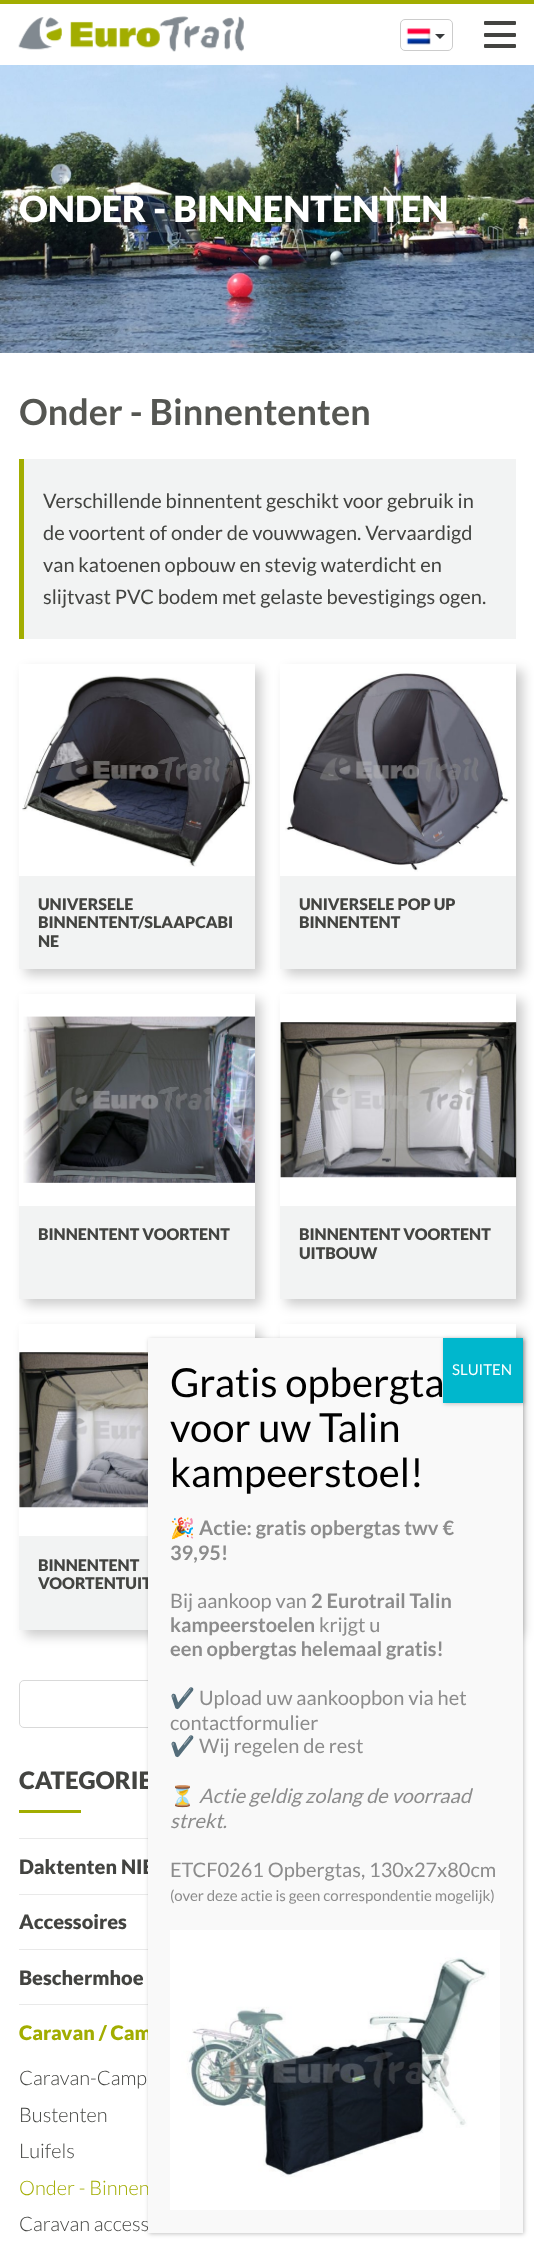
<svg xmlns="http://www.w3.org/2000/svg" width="534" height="2245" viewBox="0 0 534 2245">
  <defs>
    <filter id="blur1" x="-50%" y="-200%" width="200%" height="500%"><feGaussianBlur stdDeviation="6"/></filter>
    <filter id="blur2" x="-50%" y="-200%" width="200%" height="500%"><feGaussianBlur stdDeviation="2"/></filter>
  </defs>
  <rect width="100%" height="100%" fill="#ffffff"/>
  <rect x="0" y="0" width="534" height="4" fill="#a2ad00"/>
  <image x="18" y="16" width="226" height="36" href="img1.png"/>
  <rect x="400.5" y="19.5" width="52" height="31" rx="4.5" fill="none" stroke="#cccccc"/>
  <image x="406" y="28" width="25" height="17" href="img2.png"/>
  <path d="M435 34H445L440 39Z" fill="#373a3c"/>
  <rect x="484" y="33" width="32" height="4" rx="1" fill="#434441"/>
  <rect x="484" y="21" width="32" height="4" rx="1" fill="#434441"/>
  <rect x="484" y="44" width="32" height="4" rx="1" fill="#434441"/>
  <image x="0" y="65" width="534" height="288" href="img3.png"/>
  <text x="19" y="222" font-family="Lato" font-size="36" font-weight="900" fill="#ffffff">ONDER - BINNENTENTEN</text>
  <text x="19" y="425" font-family="Lato" font-size="36" font-weight="bold" fill="#555652">Onder - Binnententen</text>
  <rect x="24" y="459" width="492" height="180" fill="#f2f3f3"/>
  <rect x="19" y="459" width="5" height="180" fill="#a2ad00"/>
  <text x="43" y="508" font-family="Lato" font-size="20" fill="#434441">Verschillende binnentent geschikt voor gebruik in</text>
  <text x="43" y="540" font-family="Lato" font-size="20" fill="#434441">de voortent of onder de vouwwagen. Vervaardigd</text>
  <text x="43" y="572" font-family="Lato" font-size="20" fill="#434441">van katoenen opbouw en stevig waterdicht en</text>
  <text x="43" y="604" font-family="Lato" font-size="20" fill="#434441">slijtvast PVC bodem met gelaste bevestigings ogen.</text>
  <rect x="25" y="670" width="236" height="305" fill="#000000" fill-opacity="0.2" filter="url(#blur1)"/>
  <rect x="19" y="876" width="236" height="93" fill="#f2f3f3"/>
  <rect x="19" y="664" width="236" height="212" fill="#ffffff"/>
  <image x="22" y="675" width="230" height="192" href="img4.png"/>
  <text x="38" y="910" font-family="Lato" font-size="16" font-weight="900" fill="#434441">UNIVERSELE</text>
  <text x="38" y="928" font-family="Lato" font-size="16" font-weight="900" fill="#434441">BINNENTENT/SLAAPCABI</text>
  <text x="38" y="947" font-family="Lato" font-size="16" font-weight="900" fill="#434441">NE</text>
  <rect x="286" y="670" width="237" height="305" fill="#000000" fill-opacity="0.2" filter="url(#blur1)"/>
  <rect x="280" y="876" width="236" height="93" fill="#f2f3f3"/>
  <rect x="280" y="664" width="236" height="212" fill="#ffffff"/>
  <image x="285" y="672" width="225" height="200" href="img5.png"/>
  <text x="299" y="910" font-family="Lato" font-size="16" font-weight="900" fill="#434441">UNIVERSELE POP UP</text>
  <text x="299" y="928" font-family="Lato" font-size="16" font-weight="900" fill="#434441">BINNENTENT</text>
  <rect x="25" y="1000" width="236" height="305" fill="#000000" fill-opacity="0.2" filter="url(#blur1)"/>
  <rect x="19" y="1206" width="236" height="93" fill="#f2f3f3"/>
  <rect x="19" y="994" width="236" height="212" fill="#ffffff"/>
  <image x="23" y="1016" width="232" height="167" href="img6.png"/>
  <text x="38" y="1240" font-family="Lato" font-size="16" font-weight="900" fill="#434441">BINNENTENT VOORTENT</text>
  <rect x="286" y="1000" width="237" height="305" fill="#000000" fill-opacity="0.2" filter="url(#blur1)"/>
  <rect x="280" y="1206" width="236" height="93" fill="#f2f3f3"/>
  <rect x="280" y="994" width="236" height="212" fill="#ffffff"/>
  <image x="280" y="1022" width="237" height="156" href="img7.png"/>
  <text x="299" y="1240" font-family="Lato" font-size="16" font-weight="900" fill="#434441">BINNENTENT VOORTENT</text>
  <text x="299" y="1259" font-family="Lato" font-size="16" font-weight="900" fill="#434441">UITBOUW</text>
  <rect x="25" y="1330" width="236" height="306" fill="#000000" fill-opacity="0.2" filter="url(#blur1)"/>
  <rect x="19" y="1536" width="129" height="94" fill="#f2f3f3"/>
  <rect x="19" y="1324" width="236" height="212" fill="#ffffff"/>
  <image x="19" y="1352" width="129" height="156" href="img8.png"/>
  <text x="38" y="1571" font-family="Lato" font-size="16" font-weight="900" fill="#434441">BINNENTENT</text>
  <text x="38" y="1589" font-family="Lato" font-size="16" font-weight="900" fill="#434441">VOORTENTUIT</text>
  <rect x="286" y="1330" width="237" height="306" fill="#000000" fill-opacity="0.2" filter="url(#blur1)"/>
  <rect x="280" y="1324" width="236" height="14" fill="#ffffff"/>
  <path d="M24 1680.5H457.5V1727.5H24C21.5 1727.5 19.5 1725.5 19.5 1723V1685C19.5 1682.5 21.5 1680.5 24 1680.5Z" fill="none" stroke="#d9d9d9"/>
  <text x="19" y="1789" font-family="Lato" font-size="24" font-weight="900" fill="#434441">CATEGORIE</text>
  <rect x="19" y="1810" width="62" height="3" fill="#a2ad00"/>
  <rect x="19" y="1838" width="129" height="1" fill="#e9e9e9"/>
  <text x="19" y="1874" font-family="Lato" font-size="20" font-weight="900" fill="#434441">Daktenten NIE</text>
  <rect x="19" y="1894" width="129" height="1" fill="#e9e9e9"/>
  <text x="19" y="1929" font-family="Lato" font-size="20" font-weight="900" fill="#434441">Accessoires</text>
  <rect x="19" y="1949" width="129" height="1" fill="#e9e9e9"/>
  <text x="19" y="1985" font-family="Lato" font-size="20" font-weight="900" fill="#434441">Beschermhoe</text>
  <rect x="19" y="2004" width="129" height="1" fill="#e9e9e9"/>
  <text x="19" y="2040" font-family="Lato" font-size="20" font-weight="900" fill="#a2ad00">Caravan / Cam</text>
  <text x="19" y="2085" font-family="Lato" font-size="20" font-weight="300" fill="#434441">Caravan-Camp</text>
  <text x="19" y="2122" font-family="Lato" font-size="20" font-weight="300" fill="#434441">Bustenten</text>
  <text x="19" y="2158" font-family="Lato" font-size="20" font-weight="300" fill="#434441">Luifels</text>
  <text x="19" y="2195" font-family="Lato" font-size="20" font-weight="300" fill="#a2ad00">Onder - Binnen</text>
  <text x="19" y="2231" font-family="Lato" font-size="20" font-weight="300" fill="#434441">Caravan access</text>
  <rect x="149" y="1339" width="375" height="895" fill="#020202" fill-opacity="0.23" filter="url(#blur2)"/>
  <rect x="148" y="1338" width="375" height="895" fill="#f9f9f9"/>
  <text x="170" y="1397" font-family="Lato" font-size="40" fill="#000000">Gratis opbergta</text>
  <text x="170" y="1442" font-family="Lato" font-size="40" fill="#000000">voor uw Talin</text>
  <text x="170" y="1487" font-family="Lato" font-size="40" fill="#000000">kampeerstoel!</text>
  <rect x="444" y="1339" width="80" height="65" fill="#020202" fill-opacity="0.23" filter="url(#blur2)"/>
  <rect x="443" y="1338" width="80" height="65" fill="#00b7cd"/>
  <text x="452" y="1375" font-family="Lato" font-size="15" fill="#ffffff">SLUITEN</text>
  <text x="170" y="1535" font-family="Noto Color Emoji" font-size="20" font-weight="bold" fill="#8c8c8c">🎉</text>
  <text x="199" y="1535" font-family="Lato" font-size="20" font-weight="bold" fill="#8c8c8c">Actie: gratis opbergtas twv €</text>
  <text x="170" y="1560" font-family="Lato" font-size="20" font-weight="bold" fill="#8c8c8c">39,95!</text>
  <text x="170" y="1608" font-family="Lato" font-size="20" fill="#8c8c8c">Bij aankoop van</text>
  <text x="311" y="1608" font-family="Lato" font-size="20" font-weight="bold" fill="#8c8c8c">2 Eurotrail Talin</text>
  <text x="170" y="1632" font-family="Lato" font-size="20" font-weight="bold" fill="#8c8c8c">kampeerstoelen</text>
  <text x="319" y="1632" font-family="Lato" font-size="20" fill="#8c8c8c">krijgt u</text>
  <text x="170" y="1656" font-family="Lato" font-size="20" font-weight="bold" fill="#8c8c8c">een opbergtas helemaal gratis!</text>
  <text x="170" y="1705" font-family="Noto Color Emoji" font-size="20" fill="#8c8c8c">✔️</text>
  <text x="199" y="1705" font-family="Lato" font-size="20" fill="#8c8c8c">Upload uw aankoopbon via het</text>
  <text x="170" y="1730" font-family="Lato" font-size="20" fill="#8c8c8c">contactformulier</text>
  <text x="170" y="1753" font-family="Noto Color Emoji" font-size="20" fill="#8c8c8c">✔️</text>
  <text x="199" y="1753" font-family="Lato" font-size="20" fill="#8c8c8c">Wij regelen de rest</text>
  <text x="170" y="1803" font-family="Noto Color Emoji" font-size="20" fill="#8c8c8c">⏳</text>
  <text x="199" y="1803" font-family="Lato" font-size="20" font-style="italic" fill="#8c8c8c">Actie geldig zolang de voorraad</text>
  <text x="170" y="1828" font-family="Lato" font-size="20" font-style="italic" fill="#8c8c8c">strekt.</text>
  <text x="170" y="1877" font-family="Lato" font-size="20" fill="#8c8c8c">ETCF0261 Opbergtas, 130x27x80cm</text>
  <text x="170" y="1901" font-family="Lato" font-size="15" fill="#8c8c8c">(over deze actie is geen correspondentie mogelijk)</text>
  <image x="170" y="1930" width="330" height="280" href="img9.png"/>
</svg>
